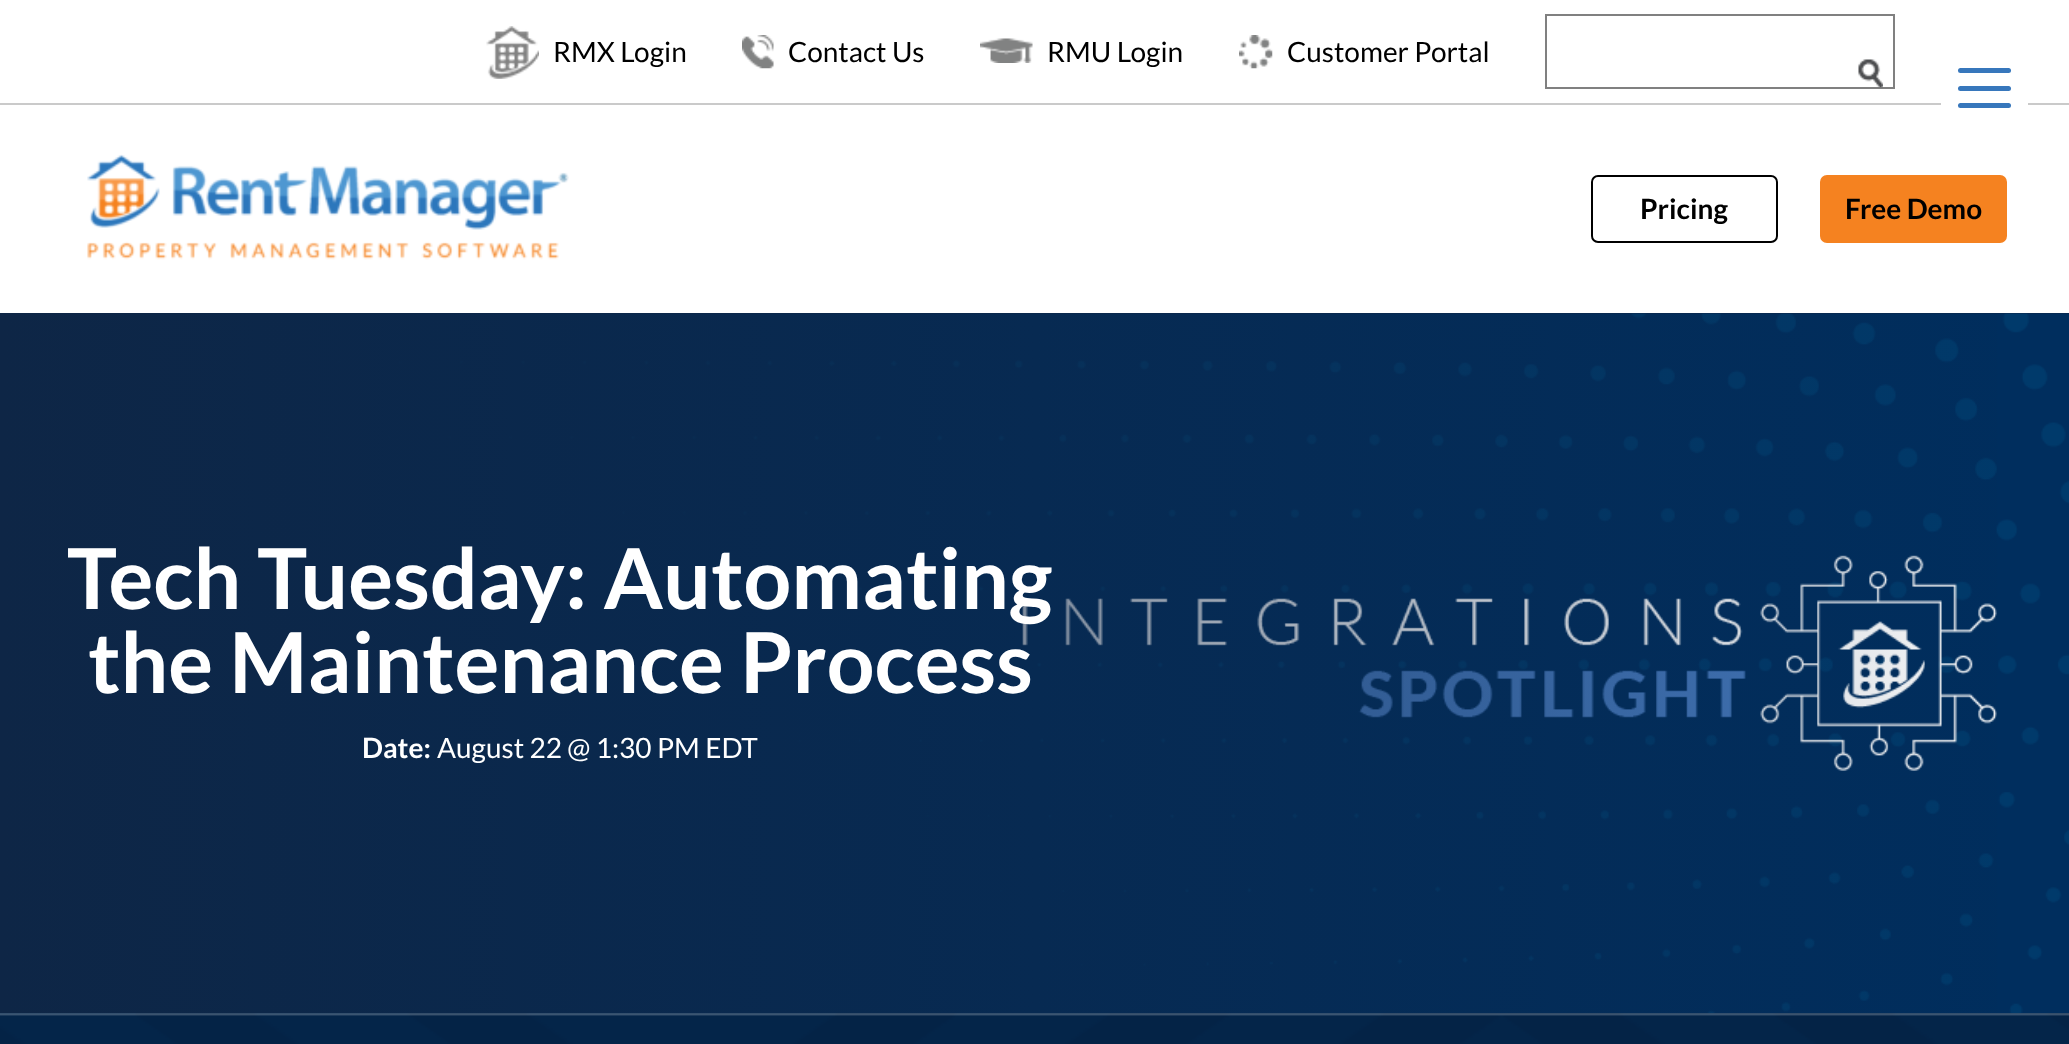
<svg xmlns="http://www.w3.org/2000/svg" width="2069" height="1044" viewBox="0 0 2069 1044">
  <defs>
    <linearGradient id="g1" gradientUnits="userSpaceOnUse" x1="0" y1="663" x2="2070" y2="663"><stop offset="0" stop-color="#0e2646"/><stop offset="1" stop-color="#0e2646" stop-opacity="0"/></linearGradient>
  </defs>
  <rect width="100%" height="100%" fill="#ffffff"/>
  <rect x="0" y="103" width="2069" height="2" fill="#cacaca"/>
  <image x="486" y="26" width="53" height="53" href="img1.png"/>
  <text x="553" y="62" font-family="Lato" font-size="28" fill="#000000">RMX Login</text>
  <image x="742" y="35" width="32" height="34" href="img2.png"/>
  <text x="788" y="62" font-family="Lato" font-size="28" fill="#000000">Contact Us</text>
  <image x="980" y="38" width="53" height="25" href="img3.png"/>
  <text x="1047" y="62" font-family="Lato" font-size="28" fill="#000000">RMU Login</text>
  <image x="1239" y="35" width="34" height="34" href="img4.png"/>
  <text x="1287" y="62" font-family="Lato" font-size="28" fill="#000000">Customer Portal</text>
  <rect x="1546" y="15" width="348" height="73" fill="none" stroke="#808080" stroke-width="2"/>
  <image x="1858" y="59" width="25" height="29" href="img5.png"/>
  <image x="87" y="154" width="482" height="106" href="img6.png"/>
  <rect x="1592" y="176" width="185" height="66" rx="6" fill="none" stroke="#000000" stroke-width="2"/>
  <text x="1640" y="219" font-family="Lato" font-size="28" font-weight="bold" fill="#000000">Pricing</text>
  <rect x="1821" y="176" width="185" height="66" rx="6" fill="#f58220" stroke="#f58220" stroke-width="2"/>
  <text x="1845" y="219" font-family="Lato" font-size="28" font-weight="bold" fill="#000000">Free Demo</text>
  <rect x="1941" y="44" width="87" height="87" rx="9" fill="#ffffff"/>
  <rect x="1958" y="86" width="53" height="5" rx="2.5" fill="#3777bc"/>
  <rect x="1958" y="68" width="53" height="5" rx="2.5" fill="#3777bc"/>
  <rect x="1958" y="103" width="53" height="5" rx="2.5" fill="#3777bc"/>
  <rect x="12" y="313" width="2057" height="1" fill="#0e2646"/>
  <image x="0" y="313" width="2069" height="701" href="img7.png"/>
  <rect x="0" y="313" width="1997" height="700" fill="url(#g1)"/>
  <text x="67" y="609" font-family="Lato" font-size="84" font-weight="bold" fill="#ffffff">Tech Tuesday: Automating</text>
  <text x="88" y="693" font-family="Lato" font-size="84" font-weight="bold" fill="#ffffff">the Maintenance Process</text>
  <text x="362" y="758" font-family="Lato" font-size="28" font-weight="bold" fill="#ffffff">Date:</text>
  <text x="437" y="758" font-family="Lato" font-size="28" fill="#ffffff">August 22 @ 1:30 PM EDT</text>
  <image x="0" y="1013" width="2069" height="31" href="img8.png"/>
</svg>
